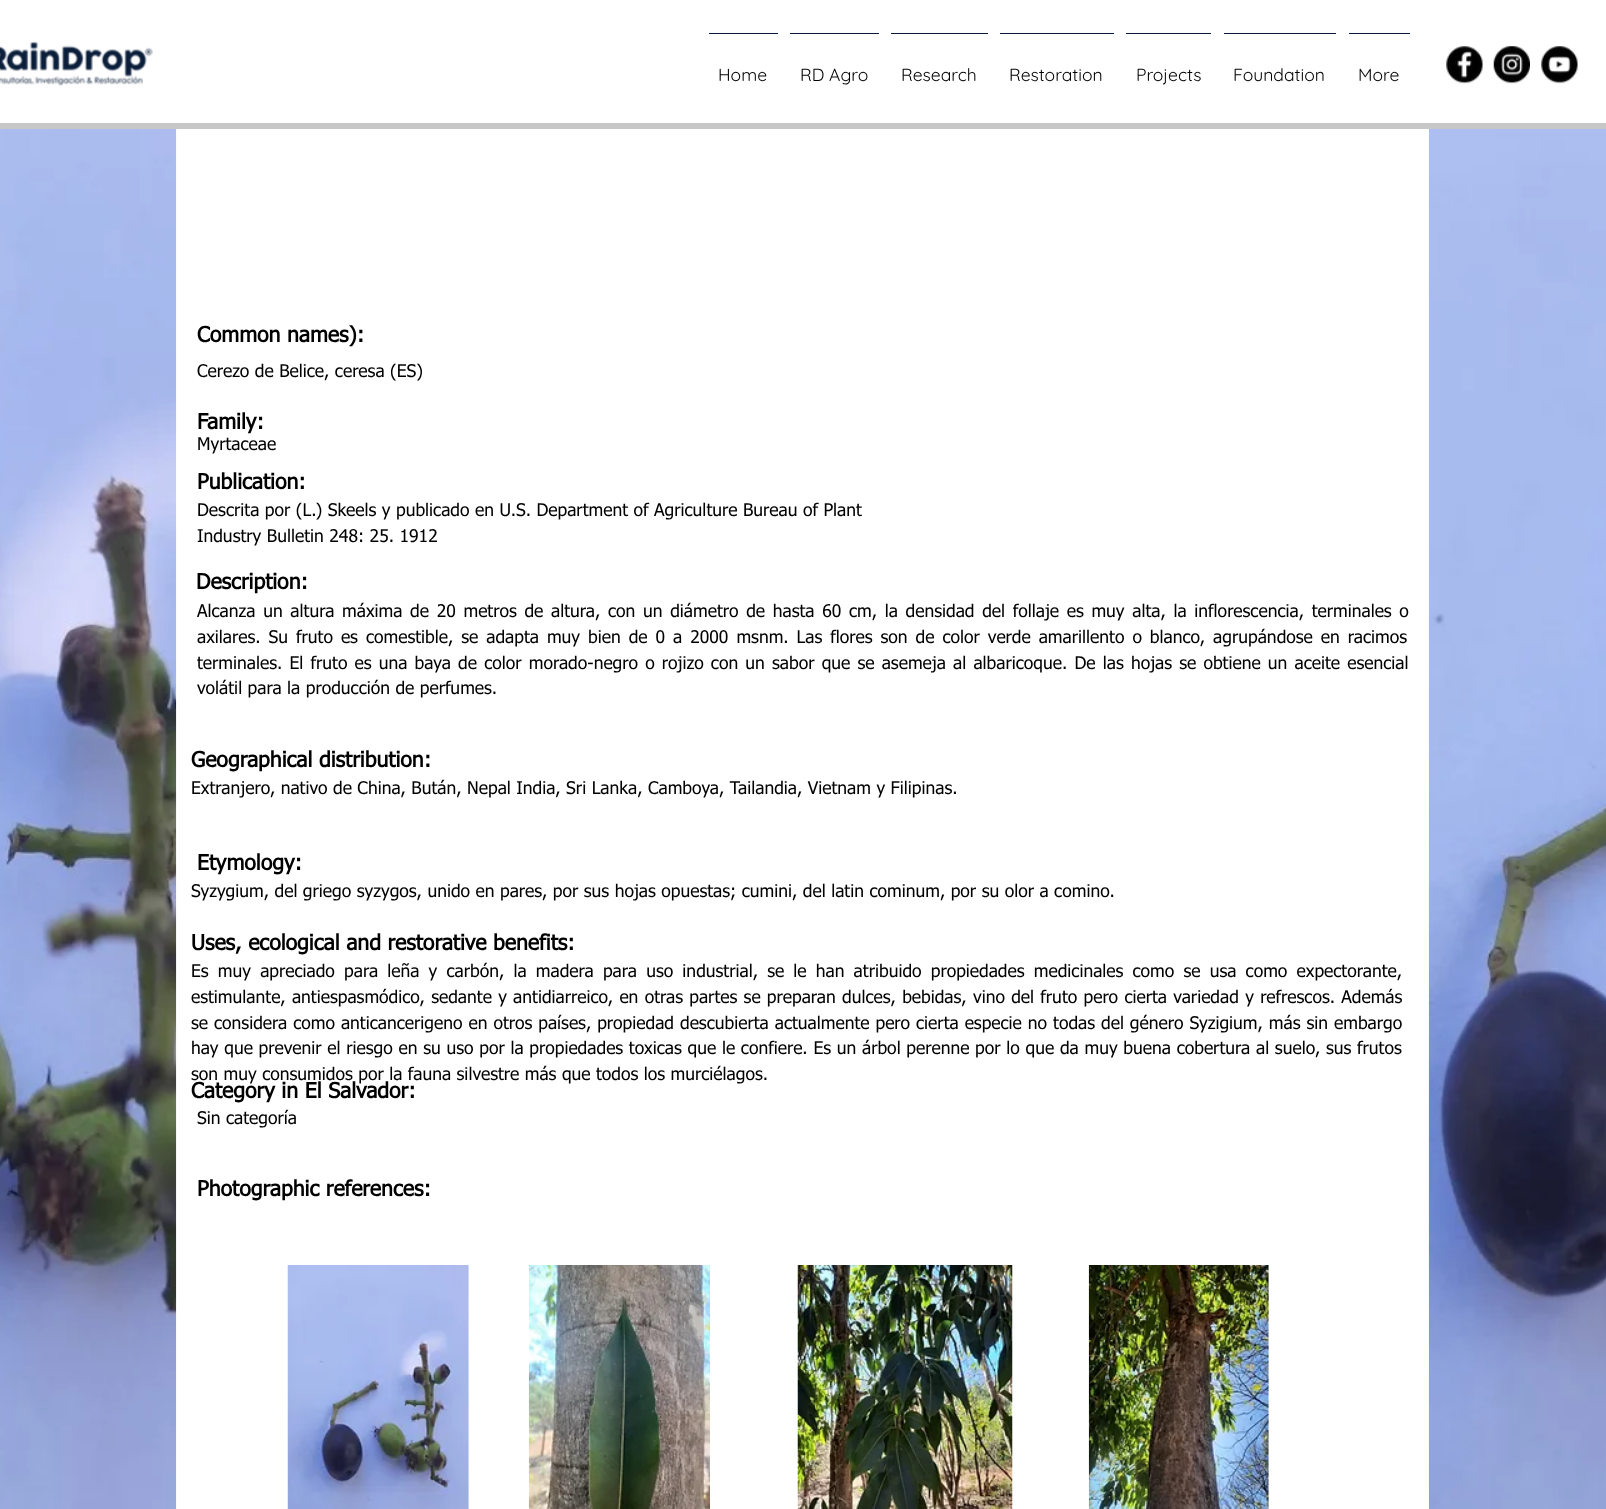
<svg xmlns="http://www.w3.org/2000/svg" width="1606" height="1509" viewBox="0 0 1606 1509">
  <rect width="100%" height="100%" fill="#ffffff"/>
  <image x="0" y="41" width="153" height="45" href="img1.png"/>
  <rect x="709" y="33" width="69" height="1" fill="#081c3a"/>
  <text x="718" y="81" font-family="Quicksand" font-size="17.5" fill="#000000">Home</text>
  <rect x="790" y="33" width="89" height="1" fill="#081c3a"/>
  <text x="800" y="81" font-family="Quicksand" font-size="17.5" fill="#000000">RD Agro</text>
  <rect x="891" y="33" width="97" height="1" fill="#081c3a"/>
  <text x="901" y="81" font-family="Quicksand" font-size="17.5" fill="#000000">Research</text>
  <rect x="1000" y="33" width="114" height="1" fill="#081c3a"/>
  <text x="1009" y="81" font-family="Quicksand" font-size="17.5" fill="#000000">Restoration</text>
  <rect x="1126" y="33" width="85" height="1" fill="#081c3a"/>
  <text x="1136" y="81" font-family="Quicksand" font-size="17.5" fill="#000000">Projects</text>
  <rect x="1224" y="33" width="112" height="1" fill="#081c3a"/>
  <text x="1233" y="81" font-family="Quicksand" font-size="17.5" fill="#000000">Foundation</text>
  <rect x="1349" y="33" width="61" height="1" fill="#081c3a"/>
  <text x="1358" y="81" font-family="Quicksand" font-size="17.5" fill="#000000">More</text>
  <image x="1446" y="46" width="37" height="38" href="img2.png"/>
  <image x="1493" y="46" width="37" height="38" href="img3.png"/>
  <image x="1541" y="46" width="37" height="38" href="img4.png"/>
  <rect x="0" y="123" width="1606" height="6" fill="#c7c7c7"/>
  <image x="0" y="129" width="177" height="1380" href="img5.png"/>
  <text x="197" y="342" font-family="tahoma" font-size="21.25" font-weight="bold" fill="#000000">Common names):</text>
  <image x="1428" y="129" width="178" height="1380" href="img6.png"/>
  <text x="197" y="377" font-family="tahoma" font-size="17.5" fill="#000000">Cerezo de Belice, ceresa (ES)</text>
  <text x="197" y="429" font-family="tahoma" font-size="21.25" font-weight="bold" fill="#000000">Family:</text>
  <text x="197" y="450" font-family="tahoma" font-size="17.5" fill="#000000">Myrtaceae</text>
  <text x="197" y="489" font-family="tahoma" font-size="21.25" font-weight="bold" fill="#000000">Publication:</text>
  <text x="197" y="516" font-family="tahoma" font-size="17.5" fill="#000000">Descrita por (L.) Skeels y publicado en U.S. Department of Agriculture Bureau of Plant</text>
  <text x="197" y="542" font-family="tahoma" font-size="17.5" fill="#000000">Industry Bulletin 248: 25. 1912</text>
  <text x="196" y="589" font-family="tahoma" font-size="21.25" font-weight="bold" fill="#000000">Description:</text>
  <text x="197" y="617" word-spacing="2.2" font-family="tahoma" font-size="17.5" fill="#000000">Alcanza un altura máxima de 20 metros de altura, con un diámetro de hasta 60 cm, la densidad del follaje es muy alta, la inflorescencia, terminales o</text>
  <text x="197" y="643" word-spacing="2.5" font-family="tahoma" font-size="17.5" fill="#000000">axilares. Su fruto es comestible, se adapta muy bien de 0 a 2000 msnm. Las flores son de color verde amarillento o blanco, agrupándose en racimos</text>
  <text x="197" y="669" word-spacing="1.7" font-family="tahoma" font-size="17.5" fill="#000000">terminales. El fruto es una baya de color morado-negro o rojizo con un sabor que se asemeja al albaricoque. De las hojas se obtiene un aceite esencial</text>
  <text x="197" y="694" font-family="tahoma" font-size="17.5" fill="#000000">volátil para la producción de perfumes.</text>
  <text x="191" y="767" font-family="tahoma" font-size="21.25" font-weight="bold" fill="#000000">Geographical distribution:</text>
  <text x="191" y="794" font-family="tahoma" font-size="17.5" fill="#000000">Extranjero, nativo de China, Bután, Nepal India, Sri Lanka, Camboya, Tailandia, Vietnam y Filipinas.</text>
  <text x="197" y="870" font-family="tahoma" font-size="21.25" font-weight="bold" fill="#000000">Etymology:</text>
  <text x="191" y="897" font-family="tahoma" font-size="17.5" fill="#000000">Syzygium, del griego syzygos, unido en pares, por sus hojas opuestas; cumini, del latin cominum, por su olor a comino.</text>
  <text x="191" y="950" font-family="tahoma" font-size="21.25" font-weight="bold" fill="#000000">Uses, ecological and restorative benefits:</text>
  <text x="191" y="977" word-spacing="3.7" font-family="tahoma" font-size="17.5" fill="#000000">Es muy apreciado para leña y carbón, la madera para uso industrial, se le han atribuido propiedades medicinales como se usa como expectorante,</text>
  <text x="191" y="1003" word-spacing="0.8" font-family="tahoma" font-size="17.5" fill="#000000">estimulante, antiespasmódico, sedante y antidiarreico, en otras partes se preparan dulces, bebidas, vino del fruto pero cierta variedad y refrescos. Además</text>
  <text x="191" y="1029" word-spacing="0.5" font-family="tahoma" font-size="17.5" fill="#000000">se considera como anticancerigeno en otros países, propiedad descubierta actualmente pero cierta especie no todas del género Syzigium, más sin embargo</text>
  <text x="191" y="1054" word-spacing="0.25" font-family="tahoma" font-size="17.5" fill="#000000">hay que prevenir el riesgo en su uso por la propiedades toxicas que le confiere. Es un árbol perenne por lo que da muy buena cobertura al suelo, sus frutos</text>
  <text x="191" y="1080" font-family="tahoma" font-size="17.5" fill="#000000">son muy consumidos por la fauna silvestre más que todos los murciélagos.</text>
  <text x="191" y="1098" font-family="tahoma" font-size="21.25" font-weight="bold" fill="#000000">Category in El Salvador:</text>
  <text x="197" y="1124" font-family="tahoma" font-size="17.5" fill="#000000">Sin categoría</text>
  <text x="197" y="1196" font-family="tahoma" font-size="21.25" font-weight="bold" fill="#000000">Photographic references:</text>
  <image x="287" y="1265" width="182" height="244" href="img7.png"/>
  <image x="528" y="1265" width="182" height="244" href="img8.png"/>
  <image x="797" y="1265" width="216" height="244" href="img9.png"/>
  <image x="1088" y="1265" width="181" height="244" href="img10.png"/>
</svg>
